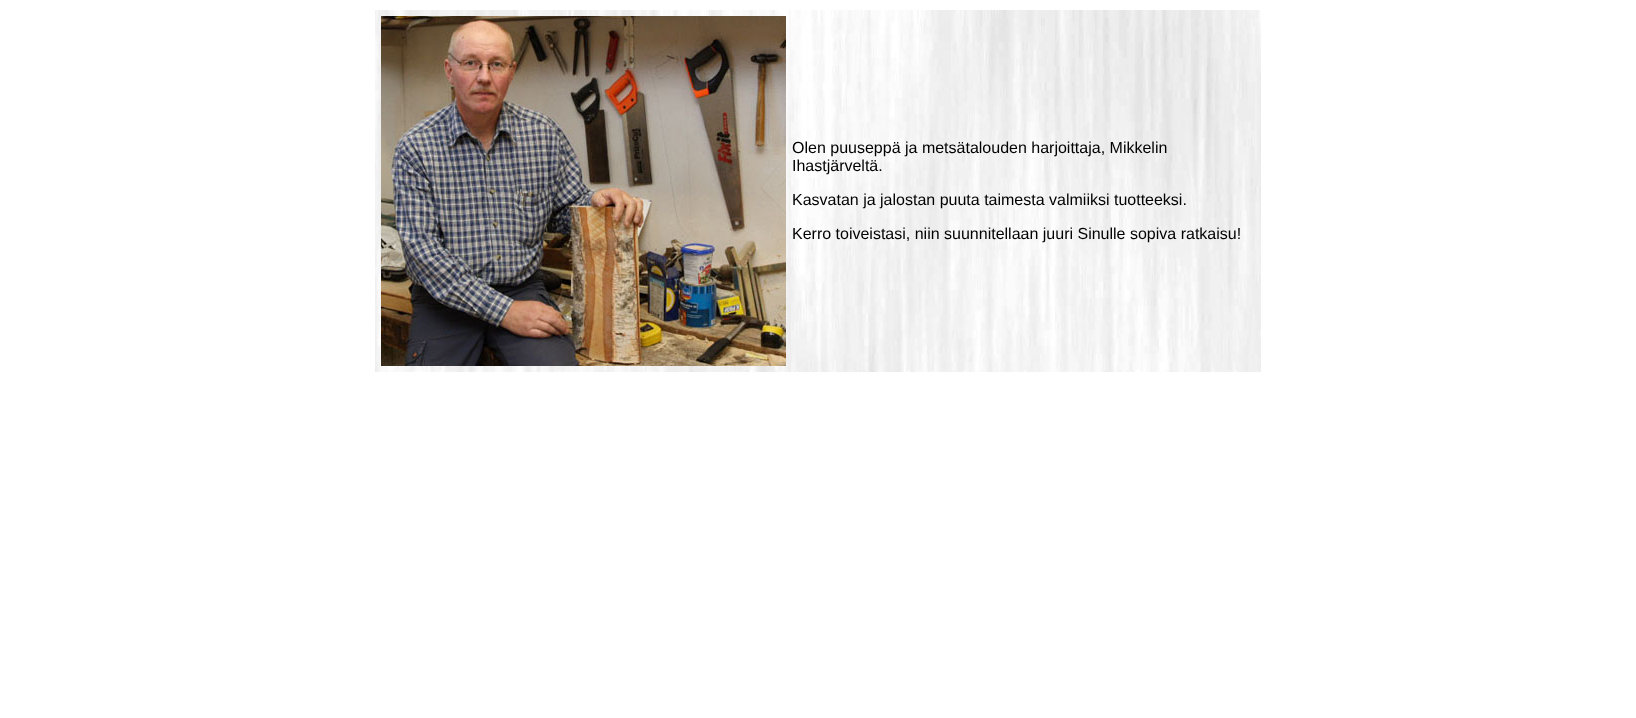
<svg xmlns="http://www.w3.org/2000/svg" width="1636" height="718" viewBox="0 0 1636 718">
  <rect width="100%" height="100%" fill="#ffffff"/>
  <image x="375" y="10" width="886" height="362" href="img1.png"/>
  <image x="381" y="16" width="405" height="350" href="img2.png"/>
  <text x="792" y="153" font-family="Liberation Sans" font-size="16" fill="#000000">Olen puuseppä ja metsätalouden harjoittaja, Mikkelin</text>
  <text x="792" y="171" font-family="Liberation Sans" font-size="16" fill="#000000">Ihastjärveltä.</text>
  <text x="792" y="205" font-family="Liberation Sans" font-size="16" fill="#000000">Kasvatan ja jalostan puuta taimesta valmiiksi tuotteeksi.</text>
  <text x="792" y="239" font-family="Liberation Sans" font-size="16" fill="#000000">Kerro toiveistasi, niin suunnitellaan juuri Sinulle sopiva ratkaisu!</text>
</svg>
